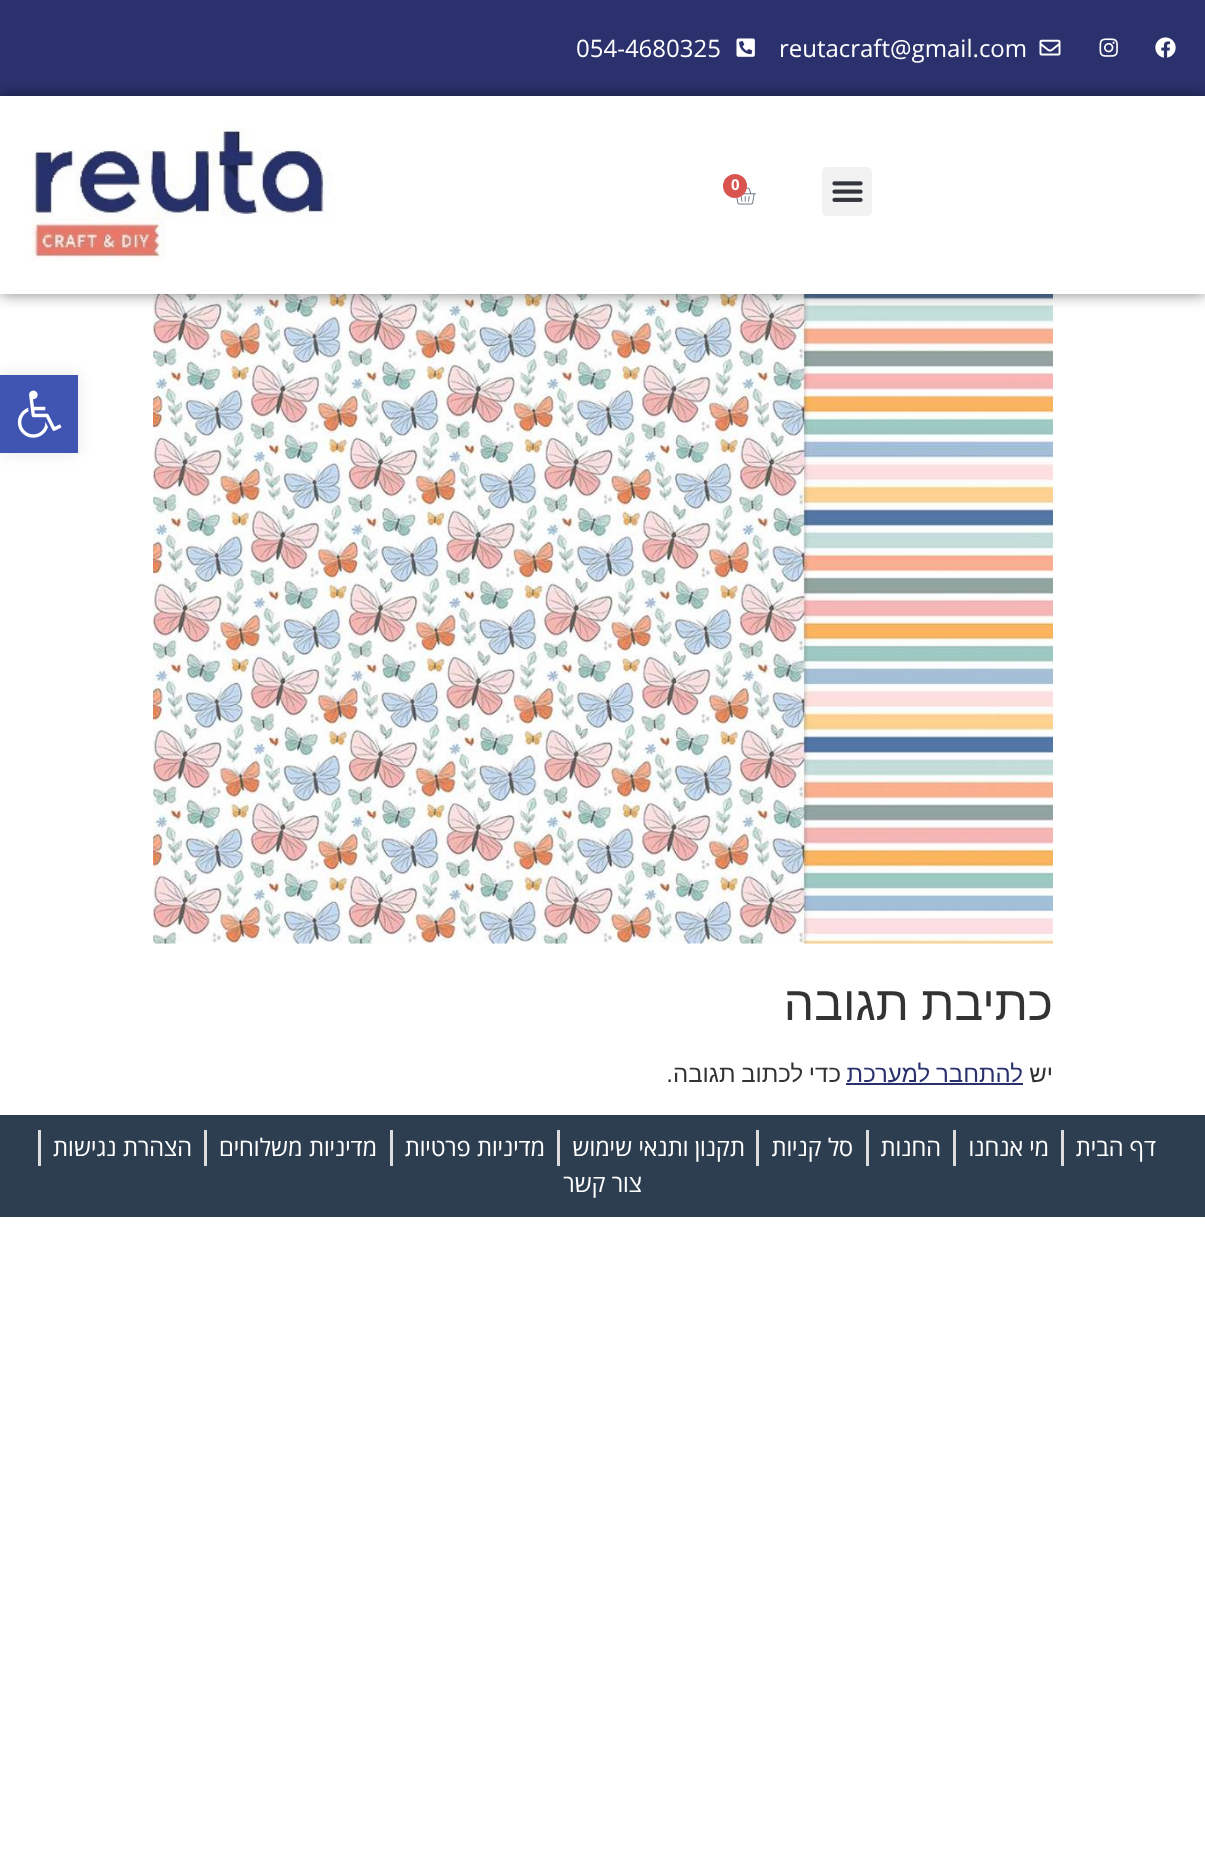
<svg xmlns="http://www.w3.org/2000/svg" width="1205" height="1849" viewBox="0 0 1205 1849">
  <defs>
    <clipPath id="clip1"><path d="M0 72H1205V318H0ZM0 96H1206V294H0Z" clip-rule="evenodd"/></clipPath>
    <filter id="blur1" x="-50%" y="-200%" width="200%" height="500%"><feGaussianBlur stdDeviation="7.5"/></filter>
  </defs>
  <rect width="100%" height="100%" fill="#ffffff"/>
  <rect x="0" y="0" width="1205" height="96" fill="#2a316c"/>
  <image x="1155" y="37" width="21" height="21" href="img1.png"/>
  <image x="1099" y="38" width="19" height="19" href="img2.png"/>
  <image x="1039" y="39" width="22" height="17" href="img3.png"/>
  <text x="779" y="57" font-family="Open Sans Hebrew" font-size="24" fill="#ffffff">reutacraft@gmail.com</text>
  <image x="736" y="38" width="19" height="19" href="img4.png"/>
  <text x="576" y="57" font-family="Open Sans Hebrew" font-size="24" fill="#ffffff">054-4680325</text>
  <image x="153" y="294" width="900" height="650" href="img9.png"/>
  <g clip-path="url(#clip1)">
    <rect x="0" y="96" width="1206" height="198" fill="#000000" fill-opacity="0.5" filter="url(#blur1)"/>
  </g>
  <rect x="822" y="167" width="50" height="49" rx="5" fill="#f2f2f2"/>
  <image x="832" y="181" width="31" height="21" href="img5.png"/>
  <image x="736" y="187" width="20" height="18" href="img6.png"/>
  <circle cx="735" cy="186" r="12" fill="#d9534f"/>
  <text x="731" y="190" font-family="Open Sans Hebrew" font-size="15" font-weight="bold" fill="#ffffff">0</text>
  <image x="31" y="127" width="306" height="135" href="img7.png"/>
  <rect x="0" y="375" width="78" height="78" fill="#000000" fill-opacity="0.1" filter="url(#blur1)"/>
  <rect x="0" y="375" width="78" height="78" fill="#4054b2"/>
  <image x="17" y="390" width="45" height="48" href="img8.png"/>
  <text x="1053" y="1020" word-spacing="-1" font-family="Liberation Sans" font-size="48" direction="rtl" fill="#333333">כתיבת תגובה</text>
  <text x="1053" y="1082" font-family="Liberation Sans" font-size="24" direction="rtl" fill="#333333">יש</text>
  <text x="1023" y="1082" word-spacing="-1" font-family="Liberation Sans" font-size="24" direction="rtl" fill="#2a316c">להתחבר למערכת</text>
  <rect x="846" y="1083" width="177" height="2" fill="#2a316c"/>
  <text x="841" y="1082" word-spacing="-1" font-family="Liberation Sans" font-size="24" direction="rtl" fill="#333333">כדי לכתוב תגובה.</text>
  <rect x="0" y="1115" width="1205" height="102" fill="#2c3e50"/>
  <text x="1156" y="1156" font-family="Open Sans Hebrew" font-size="24" direction="rtl" fill="#ffffff">דף הבית</text>
  <rect x="1061" y="1130" width="3" height="36" fill="#dddddd"/>
  <text x="1049" y="1156" font-family="Open Sans Hebrew" font-size="24" direction="rtl" fill="#ffffff">מי אנחנו</text>
  <rect x="953" y="1130" width="3" height="36" fill="#dddddd"/>
  <text x="941" y="1156" font-family="Open Sans Hebrew" font-size="24" direction="rtl" fill="#ffffff">החנות</text>
  <rect x="866" y="1130" width="3" height="36" fill="#dddddd"/>
  <text x="853" y="1156" font-family="Open Sans Hebrew" font-size="24" direction="rtl" fill="#ffffff">סל קניות</text>
  <rect x="756" y="1130" width="3" height="36" fill="#dddddd"/>
  <text x="745" y="1156" font-family="Open Sans Hebrew" font-size="24" direction="rtl" fill="#ffffff">תקנון ותנאי שימוש</text>
  <rect x="557" y="1130" width="3" height="36" fill="#dddddd"/>
  <text x="545" y="1156" font-family="Open Sans Hebrew" font-size="24" direction="rtl" fill="#ffffff">מדיניות פרטיות</text>
  <rect x="390" y="1130" width="3" height="36" fill="#dddddd"/>
  <text x="377" y="1156" font-family="Open Sans Hebrew" font-size="24" direction="rtl" fill="#ffffff">מדיניות משלוחים</text>
  <rect x="204" y="1130" width="3" height="36" fill="#dddddd"/>
  <text x="192" y="1156" font-family="Open Sans Hebrew" font-size="24" direction="rtl" fill="#ffffff">הצהרת נגישות</text>
  <rect x="38" y="1130" width="3" height="36" fill="#dddddd"/>
  <text x="642" y="1192" font-family="Open Sans Hebrew" font-size="24" direction="rtl" fill="#ffffff">צור קשר</text>
</svg>
